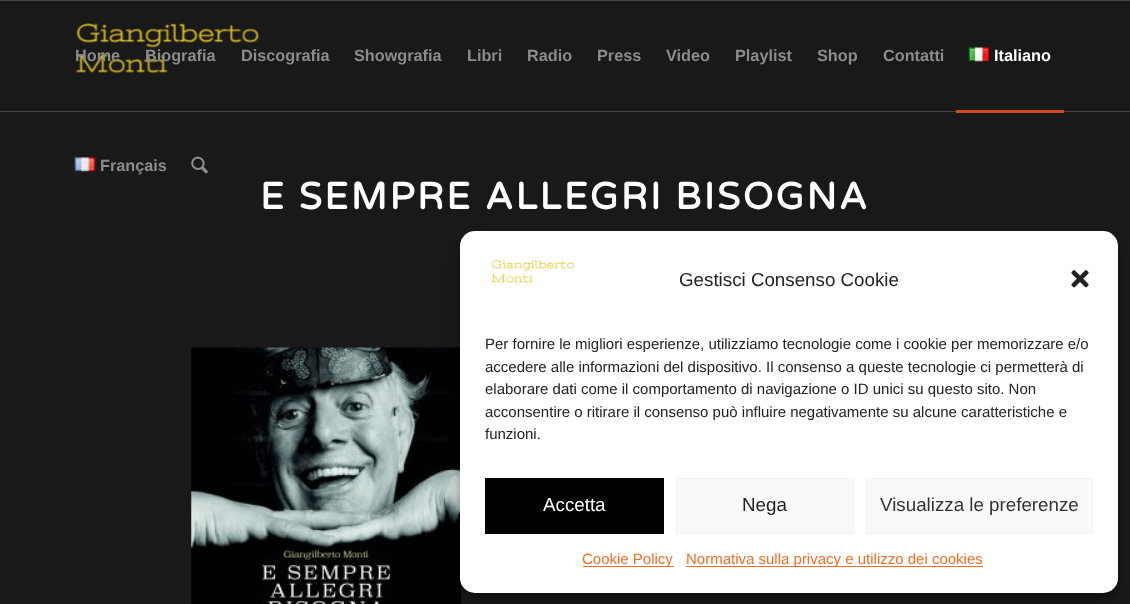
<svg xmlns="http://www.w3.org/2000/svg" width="1130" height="604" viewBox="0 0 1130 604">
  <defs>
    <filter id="blur1" x="-50%" y="-200%" width="200%" height="500%"><feGaussianBlur stdDeviation="4"/></filter>
    <filter id="blur2" x="-50%" y="-200%" width="200%" height="500%"><feGaussianBlur stdDeviation="12.5"/></filter>
  </defs>
  <rect width="100%" height="100%" fill="#191919"/>
  <rect x="0" y="0" width="1130" height="1" fill="#444444"/>
  <rect x="0" y="111" width="1130" height="1" fill="#444444"/>
  <image x="75" y="23" width="202" height="51" href="img1.png"/>
  <text x="75" y="61" font-family="Liberation Sans" font-size="16.25" font-weight="bold" fill="#8c8c8c">Home</text>
  <text x="145" y="61" font-family="Liberation Sans" font-size="16.25" font-weight="bold" fill="#8c8c8c">Biografia</text>
  <text x="241" y="61" font-family="Liberation Sans" font-size="16.25" font-weight="bold" fill="#8c8c8c">Discografia</text>
  <text x="354" y="61" font-family="Liberation Sans" font-size="16.25" font-weight="bold" fill="#8c8c8c">Showgrafia</text>
  <text x="467" y="61" font-family="Liberation Sans" font-size="16.25" font-weight="bold" fill="#8c8c8c">Libri</text>
  <text x="527" y="61" font-family="Liberation Sans" font-size="16.25" font-weight="bold" fill="#8c8c8c">Radio</text>
  <text x="597" y="61" font-family="Liberation Sans" font-size="16.25" font-weight="bold" fill="#8c8c8c">Press</text>
  <text x="666" y="61" font-family="Liberation Sans" font-size="16.25" font-weight="bold" fill="#8c8c8c">Video</text>
  <text x="735" y="61" font-family="Liberation Sans" font-size="16.25" font-weight="bold" fill="#8c8c8c">Playlist</text>
  <text x="817" y="61" font-family="Liberation Sans" font-size="16.25" font-weight="bold" fill="#8c8c8c">Shop</text>
  <text x="883" y="61" font-family="Liberation Sans" font-size="16.25" font-weight="bold" fill="#8c8c8c">Contatti</text>
  <image x="968" y="47" width="21" height="15" href="img2.png"/>
  <text x="994" y="61" font-family="Liberation Sans" font-size="16.25" font-weight="bold" fill="#ffffff">Italiano</text>
  <rect x="956" y="110" width="108" height="3" fill="#cf4a1d"/>
  <image x="74" y="157" width="22" height="15" href="img3.png"/>
  <text x="100" y="171" font-family="Liberation Sans" font-size="16.25" font-weight="bold" fill="#8c8c8c">Français</text>
  <image x="191" y="156" width="17" height="18" href="img4.png"/>
  <text x="260" y="209" font-family="Varela Round" font-size="37.5" font-weight="bold" letter-spacing="2.5" fill="#ffffff">E SEMPRE ALLEGRI BISOGNA</text>
  <image x="191" y="347" width="271" height="257" href="img5.png"/>
  <rect x="460" y="239" width="658" height="361" rx="15" fill="#000000" fill-opacity="0.23" filter="url(#blur1)"/>
  <rect x="460" y="244" width="658" height="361" rx="15" fill="#000000" fill-opacity="0.19" filter="url(#blur2)"/>
  <rect x="460" y="231" width="658" height="362" rx="15" fill="#ffffff"/>
  <image x="491" y="260" width="92" height="23" href="img6.png"/>
  <text x="679" y="286" font-family="Liberation Sans" font-size="18.75" fill="#222222">Gestisci Consenso Cookie</text>
  <image x="1071" y="270" width="18" height="18" href="img7.png"/>
  <text x="485" y="349" font-family="Liberation Sans" font-size="15" fill="#222222">Per fornire le migliori esperienze, utilizziamo tecnologie come i cookie per memorizzare e/o</text>
  <text x="485" y="372" font-family="Liberation Sans" font-size="15" fill="#222222">accedere alle informazioni del dispositivo. Il consenso a queste tecnologie ci permetterà di</text>
  <text x="485" y="394" font-family="Liberation Sans" font-size="15" fill="#222222">elaborare dati come il comportamento di navigazione o ID unici su questo sito. Non</text>
  <text x="485" y="417" font-family="Liberation Sans" font-size="15" fill="#222222">acconsentire o ritirare il consenso può influire negativamente su alcune caratteristiche e</text>
  <text x="485" y="439" font-family="Liberation Sans" font-size="15" fill="#222222">funzioni.</text>
  <rect x="485" y="478" width="179" height="56" fill="#000000"/>
  <text x="543" y="511" font-family="Liberation Sans" font-size="18.75" fill="#ffffff">Accetta</text>
  <rect x="676.5" y="478.5" width="177" height="55" fill="#f9f9f9" stroke="#f2f2f2"/>
  <text x="742" y="511" font-family="Liberation Sans" font-size="18.75" fill="#222222">Nega</text>
  <rect x="866.5" y="478.5" width="226" height="55" fill="#f9f9f9" stroke="#f2f2f2"/>
  <text x="880" y="511" font-family="Liberation Sans" font-size="18.75" fill="#333333">Visualizza le preferenze</text>
  <rect x="583" y="566" width="91" height="1" fill="#f56e28"/>
  <text x="582" y="564" font-family="Liberation Sans" font-size="15" fill="#f56e28">Cookie Policy</text>
  <rect x="686" y="566" width="297" height="1" fill="#f56e28"/>
  <text x="686" y="564" font-family="Liberation Sans" font-size="15" fill="#f56e28">Normativa sulla privacy e utilizzo dei cookies</text>
</svg>
